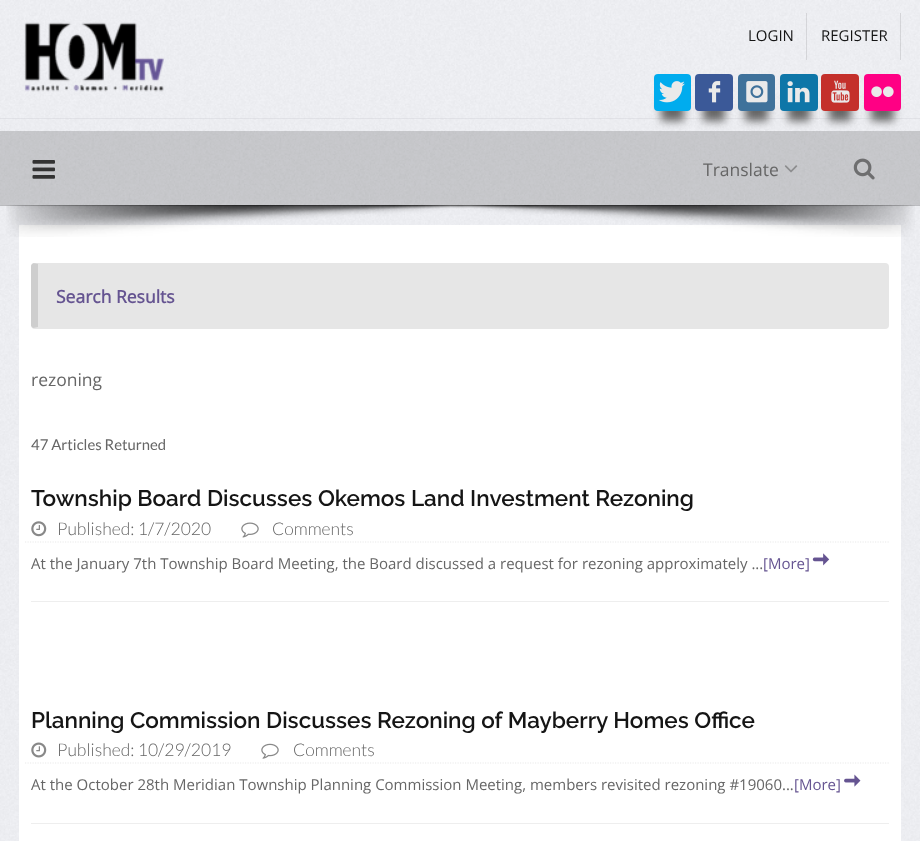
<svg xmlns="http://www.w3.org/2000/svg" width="920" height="841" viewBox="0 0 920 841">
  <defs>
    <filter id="blur1" x="-50%" y="-200%" width="200%" height="500%"><feGaussianBlur stdDeviation="4"/></filter>
  </defs>
  <rect width="100%" height="100%" fill="#f1f2f7"/>
  <image x="0" y="119" width="920" height="722" href="img1.png"/>
  <image x="0" y="0" width="920" height="119" href="img2.png"/>
  <rect x="0" y="118" width="920" height="1" fill="#000000" fill-opacity="0.05"/>
  <image x="24" y="22" width="140" height="70" href="img3.png"/>
  <rect x="806" y="13" width="1" height="47" fill="#000000" fill-opacity="0.1"/>
  <text x="748" y="41" font-family="Open Sans" font-size="15" fill="#151515">LOGIN</text>
  <rect x="900" y="13" width="1" height="47" fill="#000000" fill-opacity="0.1"/>
  <text x="821" y="41" font-family="Open Sans" font-size="15" fill="#151515">REGISTER</text>
  <rect x="661" y="99" width="23" height="22" fill="#666666" filter="url(#blur1)"/>
  <rect x="654" y="74" width="37" height="37" rx="4" fill="#00acee"/>
  <image x="659" y="81" width="26" height="22" href="img4.png"/>
  <rect x="703" y="99" width="22" height="22" fill="#666666" filter="url(#blur1)"/>
  <rect x="695" y="74" width="38" height="37" rx="4" fill="#3b5998"/>
  <image x="708" y="81" width="13" height="22" href="img5.png"/>
  <rect x="745" y="99" width="23" height="22" fill="#666666" filter="url(#blur1)"/>
  <rect x="738" y="74" width="37" height="37" rx="4" fill="#3f729b"/>
  <image x="746" y="81" width="22" height="22" href="img6.png"/>
  <rect x="788" y="99" width="22" height="22" fill="#666666" filter="url(#blur1)"/>
  <rect x="780" y="74" width="38" height="37" rx="4" fill="#0e76a8"/>
  <image x="787" y="81" width="23" height="22" href="img7.png"/>
  <rect x="829" y="99" width="22" height="22" fill="#666666" filter="url(#blur1)"/>
  <rect x="821" y="74" width="38" height="37" rx="4" fill="#c4302b"/>
  <image x="831" y="80" width="19" height="23" href="img8.png"/>
  <rect x="871" y="99" width="23" height="22" fill="#666666" filter="url(#blur1)"/>
  <rect x="864" y="74" width="37" height="37" rx="4" fill="#ff0084"/>
  <image x="871" y="86" width="23" height="12" href="img9.png"/>
  <rect x="0" y="131" width="920" height="75" fill="#000000" fill-opacity="0.16"/>
  <rect x="0" y="205" width="920" height="1" fill="#000000" fill-opacity="0.05"/>
  <image x="32" y="160" width="23" height="19" href="img10.png"/>
  <text x="703" y="176" font-family="Open Sans" font-size="17.5" fill="#666666">Translate</text>
  <image x="784" y="165" width="14" height="8" href="img11.png"/>
  <image x="853" y="158" width="22" height="22" href="img12.png"/>
  <rect x="19" y="225" width="882" height="616" fill="#ffffff"/>
  <image x="6" y="205" width="909" height="32" href="img13.png"/>
  <rect x="31" y="263" width="858" height="66" rx="4" fill="#e6e6e6"/>
  <path d="M38 264V327L33 328L31 326V265L33 263L39 264Z" fill="#000000" fill-opacity="0.1"/>
  <text x="56" y="303" font-family="Open Sans" font-size="17.5" font-weight="bold" fill="#655491">Search Results</text>
  <text x="31" y="386" font-family="Open Sans" font-size="17.5" fill="#666666">rezoning</text>
  <text x="31" y="450" font-family="Lato" font-size="14.9" fill="#666666">47 Articles Returned</text>
  <rect x="31" y="601" width="858" height="1" fill="#eeeeee"/>
  <text x="31" y="506" font-family="Raleway" font-size="22.5" font-weight="600" fill="#151515">Township Board Discusses Okemos Land Investment Rezoning</text>
  <path d="M25 542H889" fill="none" stroke="#eaeaea" stroke-width="1.2" stroke-dasharray="1.25 1.25"/>
  <image x="31" y="521" width="16" height="16" href="img14.png"/>
  <text x="57" y="535" font-family="Lato" font-size="17.5" font-weight="300" fill="#666666">Published: 1/7/2020</text>
  <image x="241" y="522" width="18" height="16" href="img15.png"/>
  <text x="272" y="535" font-family="Lato" font-size="17.5" font-weight="300" fill="#666666">Comments</text>
  <text x="31" y="569" font-family="Open Sans" font-size="15" fill="#666666">At the January 7th Township Board Meeting, the Board discussed a request for rezoning approximately ...</text>
  <text x="763" y="569" font-family="Open Sans" font-size="15" fill="#655491">[More]</text>
  <image x="812" y="553" width="18" height="13" href="img16.png"/>
  <rect x="31" y="823" width="858" height="1" fill="#eeeeee"/>
  <text x="31" y="728" font-family="Raleway" font-size="22.5" font-weight="600" fill="#151515">Planning Commission Discusses Rezoning of Mayberry Homes Office</text>
  <path d="M25 763H889" fill="none" stroke="#eaeaea" stroke-width="1.2" stroke-dasharray="1.25 1.25"/>
  <image x="31" y="742" width="16" height="16" href="img17.png"/>
  <text x="57" y="756" font-family="Lato" font-size="17.5" font-weight="300" fill="#666666">Published: 10/29/2019</text>
  <image x="261" y="743" width="18" height="16" href="img18.png"/>
  <text x="293" y="756" font-family="Lato" font-size="17.5" font-weight="300" fill="#666666">Comments</text>
  <text x="31" y="790" font-family="Open Sans" font-size="15" fill="#666666">At the October 28th Meridian Township Planning Commission Meeting, members revisited rezoning #19060...</text>
  <text x="794" y="790" font-family="Open Sans" font-size="15" fill="#655491">[More]</text>
  <image x="844" y="774" width="17" height="13" href="img19.png"/>
</svg>
